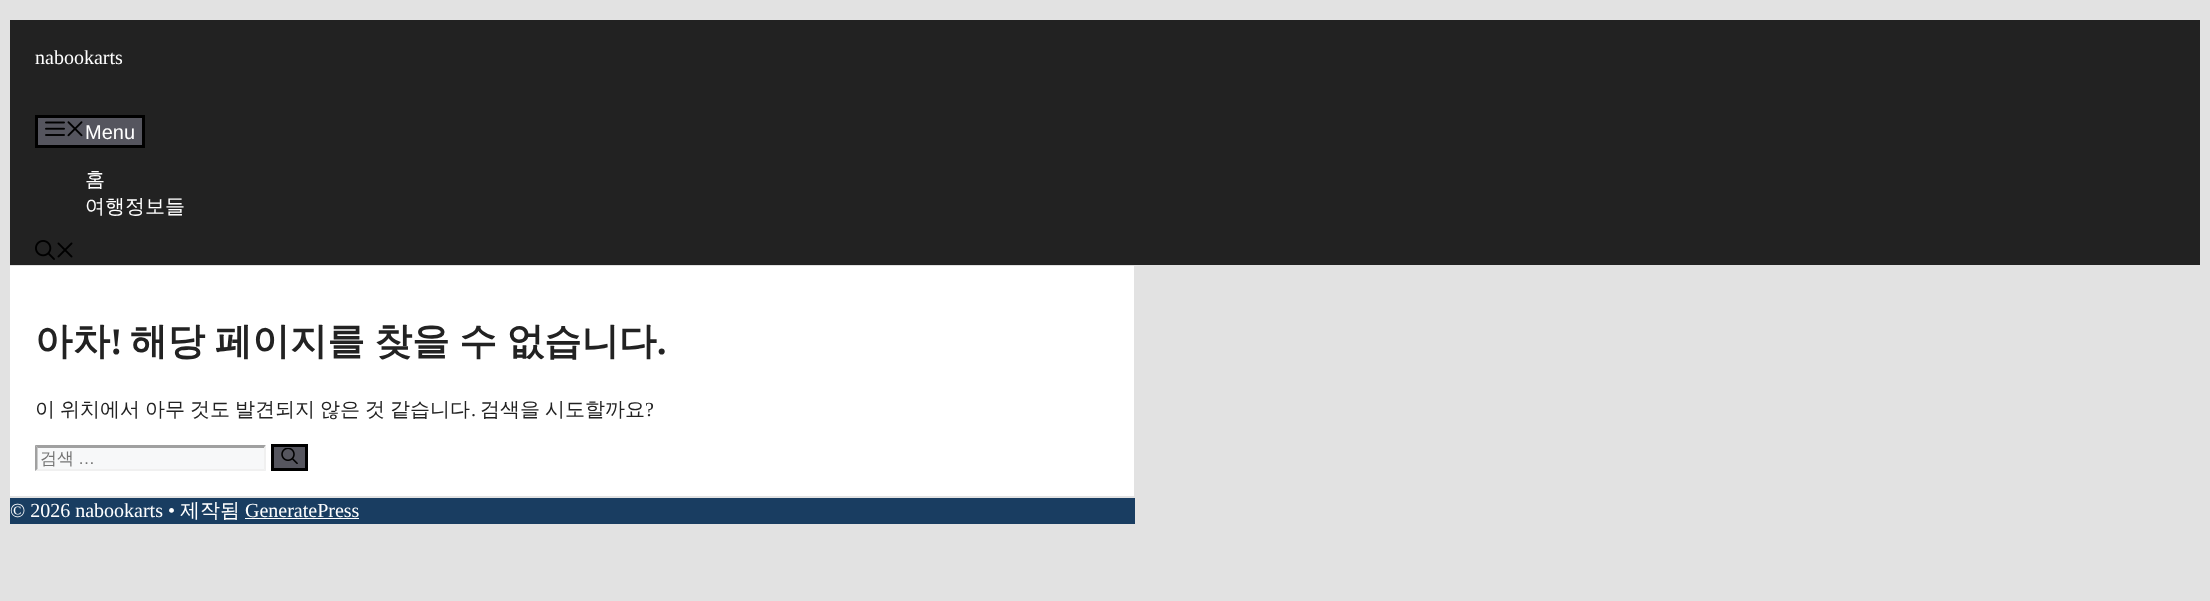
<svg xmlns="http://www.w3.org/2000/svg" width="2210" height="601" viewBox="0 0 2210 601">
  <rect width="100%" height="100%" fill="#e2e2e2"/>
  <rect x="10" y="20" width="2190" height="245" fill="#222222"/>
  <text x="35" y="64" font-family="Liberation Serif" font-size="20" fill="#ffffff">nabookarts</text>
  <rect x="36.5" y="116.5" width="107" height="30" fill="#55555e" stroke="#000000" stroke-width="3"/>
  <image x="45" y="121" width="20" height="15" href="img1.png"/>
  <image x="67" y="121" width="16" height="16" href="img2.png"/>
  <text x="85" y="139" font-family="Liberation Sans" font-size="20" fill="#ffffff">Menu</text>
  <text x="85" y="186" font-family="WenQuanYi Zen Hei" font-size="20" font-weight="500" fill="#ffffff">홈</text>
  <text x="85" y="213" font-family="WenQuanYi Zen Hei" font-size="20" font-weight="500" fill="#ffffff">여행정보들</text>
  <image x="35" y="240" width="20" height="20" href="img3.png"/>
  <image x="57" y="242" width="16" height="16" href="img4.png"/>
  <rect x="10" y="266" width="1124" height="230" fill="#ffffff"/>
  <text x="35" y="354" font-family="WenQuanYi Zen Hei" font-size="37.5" font-weight="bold" fill="#222222">아차</text>
  <text x="110" y="354" font-family="Liberation Serif" font-size="37.5" font-weight="bold" fill="#222222">!</text>
  <text x="130" y="354" word-spacing="-1.5" font-family="WenQuanYi Zen Hei" font-size="37.5" font-weight="bold" fill="#222222">해당 페이지를 찾을 수 없습니다</text>
  <text x="657" y="354" font-family="Liberation Serif" font-size="37.5" font-weight="bold" fill="#222222">.</text>
  <text x="35" y="416" word-spacing="-1" font-family="WenQuanYi Zen Hei" font-size="20" font-weight="500" fill="#222222">이 위치에서 아무 것도 발견되지 않은 것 같습니다</text>
  <text x="471" y="416" font-family="Liberation Serif" font-size="20" fill="#222222">.</text>
  <text x="480" y="416" word-spacing="-1" font-family="WenQuanYi Zen Hei" font-size="20" font-weight="500" fill="#222222">검색을 시도할까요</text>
  <text x="645" y="416" font-family="Liberation Serif" font-size="20" fill="#222222">?</text>
  <rect x="35" y="445" width="231" height="26" fill="#f7f8f9"/>
  <path d="M35 445H266L264 448H38Z" fill="#a0a0a0"/>
  <path d="M266 445V471L264 469V447.5Z" fill="#f0f0f0"/>
  <path d="M266 471H35L38 469H264Z" fill="#f0f0f0"/>
  <path d="M35 471V445L37.5 447.5V469Z" fill="#a0a0a0"/>
  <text x="40" y="464" font-family="WenQuanYi Zen Hei" font-size="17" font-weight="500" fill="#757575">검색</text>
  <text x="78" y="464" font-family="Liberation Sans" font-size="17" fill="#757575">…</text>
  <rect x="272.5" y="445.5" width="34" height="24" fill="#55555e" stroke="#000000" stroke-width="3"/>
  <image x="281" y="448" width="17" height="16" href="img5.png"/>
  <rect x="10" y="498" width="1125" height="26" fill="#193d61"/>
  <text x="10" y="517" font-family="Liberation Serif" font-size="20" fill="#ffffff">© 2026 nabookarts •</text>
  <text x="180" y="517" font-family="WenQuanYi Zen Hei" font-size="20" font-weight="500" fill="#ffffff">제작됨</text>
  <text x="245" y="517" font-family="Liberation Serif" font-size="20" fill="#ffffff">GeneratePress</text>
  <rect x="245" y="518" width="114" height="1" fill="#ffffff"/>
</svg>
